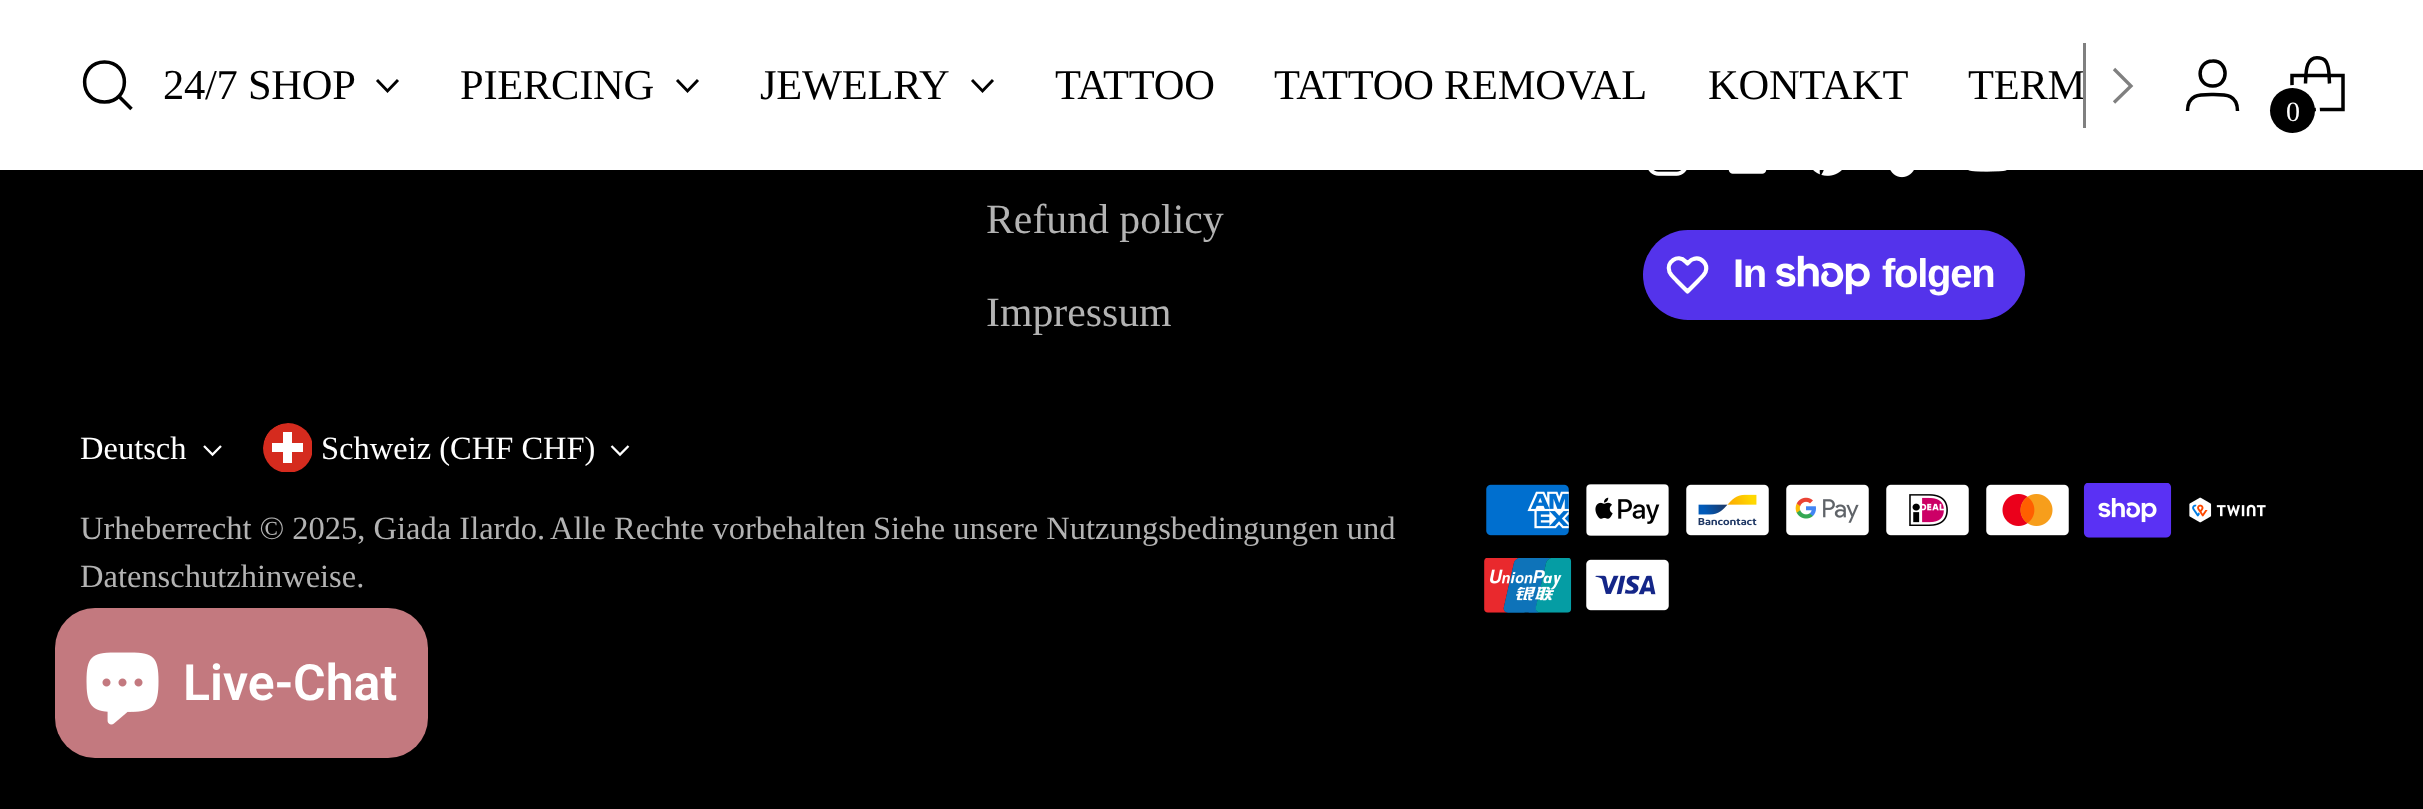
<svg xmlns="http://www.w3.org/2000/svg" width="2423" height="809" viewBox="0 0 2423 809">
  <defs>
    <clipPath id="clip1"><rect x="263" y="423" width="50" height="50" rx="25"/></clipPath>
  </defs>
  <rect width="100%" height="100%" fill="#000000"/>
  <rect x="0" y="0" width="2423" height="170" fill="#ffffff"/>
  <path d="M104.5 102C131 102 131 62 104.5 62C78 62 78 102 104.5 102Z" fill="none" stroke="#000000" stroke-width="3.5" stroke-linecap="round"/>
  <path d="M119 96.5L131.5 109" fill="none" stroke="#000000" stroke-width="3.5"/>
  <text x="163" y="99" font-family="Liberation Serif" font-size="42.5" letter-spacing="-0.25" fill="#000000">24/7 SHOP</text>
  <path d="M377 80L387.5 91L398 80" fill="none" stroke="#000000" stroke-width="2.9"/>
  <text x="460" y="99" font-family="Liberation Serif" font-size="42.5" letter-spacing="-0.25" fill="#000000">PIERCING</text>
  <path d="M677 80L687.5 91L698 80" fill="none" stroke="#000000" stroke-width="2.9"/>
  <text x="760" y="99" font-family="Liberation Serif" font-size="42.5" letter-spacing="-0.25" fill="#000000">JEWELRY</text>
  <path d="M972 80L982.5 91L993 80" fill="none" stroke="#000000" stroke-width="2.9"/>
  <text x="1055" y="99" font-family="Liberation Serif" font-size="42.5" letter-spacing="-0.25" fill="#000000">TATTOO</text>
  <text x="1274" y="99" font-family="Liberation Serif" font-size="42.5" letter-spacing="-0.25" fill="#000000">TATTOO REMOVAL</text>
  <text x="1708" y="99" font-family="Liberation Serif" font-size="42.5" letter-spacing="-0.25" fill="#000000">KONTAKT</text>
  <text x="1968" y="99" font-family="Liberation Serif" font-size="42.5" letter-spacing="-0.25" fill="#000000">TERM</text>
  <rect x="2083" y="43" width="3" height="85" fill="#808080"/>
  <path d="M2114 102.5L2131 86L2114 69" fill="none" stroke="#808080" stroke-width="3.3"/>
  <path d="M2212.5 86C2229.5 86.5 2229 60 2212.5 61C2196 61.5 2196 86 2212.5 86ZM2187.5 111C2187.5 94 2199.5 94.5 2212.5 94.5C2225.5 94.5 2237.5 94 2237.5 111" fill="none" stroke="#000000" stroke-width="3.5"/>
  <path d="M2329.5 83.5C2329 77.5 2329.5 71 2327.5 65C2326.5 61.5 2323.5 58.5 2320 58C2305 55 2306 74 2305.5 83.5" fill="none" stroke="#000000" stroke-width="3.5" stroke-linejoin="bevel"/>
  <path d="M2343 109.5V75.5H2292V109.5Z" fill="none" stroke="#000000" stroke-width="3.5"/>
  <rect x="2270" y="87" width="48" height="49" rx="24" fill="none" stroke="#ffffff" stroke-width="4"/>
  <circle cx="2292.5" cy="110.5" r="22.5" fill="#000000"/>
  <text x="2286" y="121" font-family="Liberation Serif" font-size="28" fill="#ffffff">0</text>
  <text x="986" y="233" font-family="Liberation Serif" font-size="41.75" fill="#b3b3b3">Refund policy</text>
  <text x="986" y="326" font-family="Liberation Serif" font-size="41.75" fill="#b3b3b3">Impressum</text>
  <image x="1648" y="170" width="39" height="6" href="img1.png"/>
  <image x="1728" y="170" width="39" height="4" href="img2.png"/>
  <image x="1813" y="170" width="29" height="6" href="img3.png"/>
  <image x="1890" y="170" width="24" height="8" href="img4.png"/>
  <image x="1968" y="170" width="39" height="2" href="img5.png"/>
  <rect x="1643" y="230" width="382" height="90" rx="45" fill="#5433eb"/>
  <path d="M1685.5 261.5L1687.5 263.5C1689.5 261.5 1691 259.5 1693.5 259C1701.5 256.5 1708.5 264.5 1705.5 272C1704 275.5 1700.5 278 1698 281L1687.5 291.5L1677 281C1674.5 278 1671 275.5 1669.5 272C1665.5 262 1678 253.5 1685.5 261.5Z" fill="none" stroke="#ffffff" stroke-width="4.2" stroke-linejoin="round"/>
  <text x="1733" y="287" font-family="Liberation Sans" font-size="40" font-weight="bold" letter-spacing="-1.25" fill="#ffffff">In</text>
  <image x="1776" y="255" width="94" height="40" href="img6.png"/>
  <text x="1882" y="287" font-family="Liberation Sans" font-size="40" font-weight="bold" letter-spacing="-1.25" fill="#ffffff">folgen</text>
  <text x="80" y="459" font-family="Liberation Serif" font-size="32.5" fill="#ffffff">Deutsch</text>
  <path d="M204 446L212.5 454.5L221 446" fill="none" stroke="#ffffff" stroke-width="2.3"/>
  <g clip-path="url(#clip1)">
    <path d="M288 423H312V472H263V448C263 434 274 423 288 423Z" fill="#d52b1e"/>
  </g>
  <rect x="272" y="443" width="31" height="9" fill="#ffffff"/>
  <rect x="283" y="432" width="9" height="31" fill="#ffffff"/>
  <text x="321" y="459" font-family="Liberation Serif" font-size="32.5" fill="#ffffff">Schweiz (CHF CHF)</text>
  <path d="M611.5 446L620 454.5L628.5 446" fill="none" stroke="#ffffff" stroke-width="2.3"/>
  <text x="80" y="539" font-family="Liberation Serif" font-size="32.5" fill="#b3b3b3">Urheberrecht © 2025, Giada Ilardo.</text>
  <text x="550" y="539" font-family="Liberation Serif" font-size="32.5" fill="#b3b3b3">Alle Rechte vorbehalten</text>
  <text x="873" y="539" font-family="Liberation Serif" font-size="32.5" fill="#b3b3b3">Siehe unsere Nutzungsbedingungen und</text>
  <text x="80" y="587" font-family="Liberation Serif" font-size="32.5" fill="#b3b3b3">Datenschutzhinweise.</text>
  <image x="1486" y="484" width="83" height="52" href="img7.png"/>
  <image x="1586" y="484" width="83" height="52" href="img8.png"/>
  <image x="1686" y="484" width="83" height="52" href="img9.png"/>
  <image x="1786" y="484" width="83" height="52" href="img10.png"/>
  <image x="1886" y="484" width="83" height="52" href="img11.png"/>
  <image x="1986" y="484" width="83" height="52" href="img12.png"/>
  <image x="2083" y="483" width="89" height="55" href="img13.png"/>
  <image x="2189" y="497" width="77" height="26" href="img14.png"/>
  <image x="1484" y="558" width="88" height="55" href="img15.png"/>
  <image x="1586" y="559" width="83" height="52" href="img16.png"/>
  <rect x="55" y="608" width="373" height="150" rx="40" fill="#c3797f"/>
  <image x="86" y="652" width="73" height="73" href="img17.png"/>
  <text x="183" y="700" font-family="Roboto" font-size="50" font-weight="600" fill="#ffffff">Live-Chat</text>
</svg>
